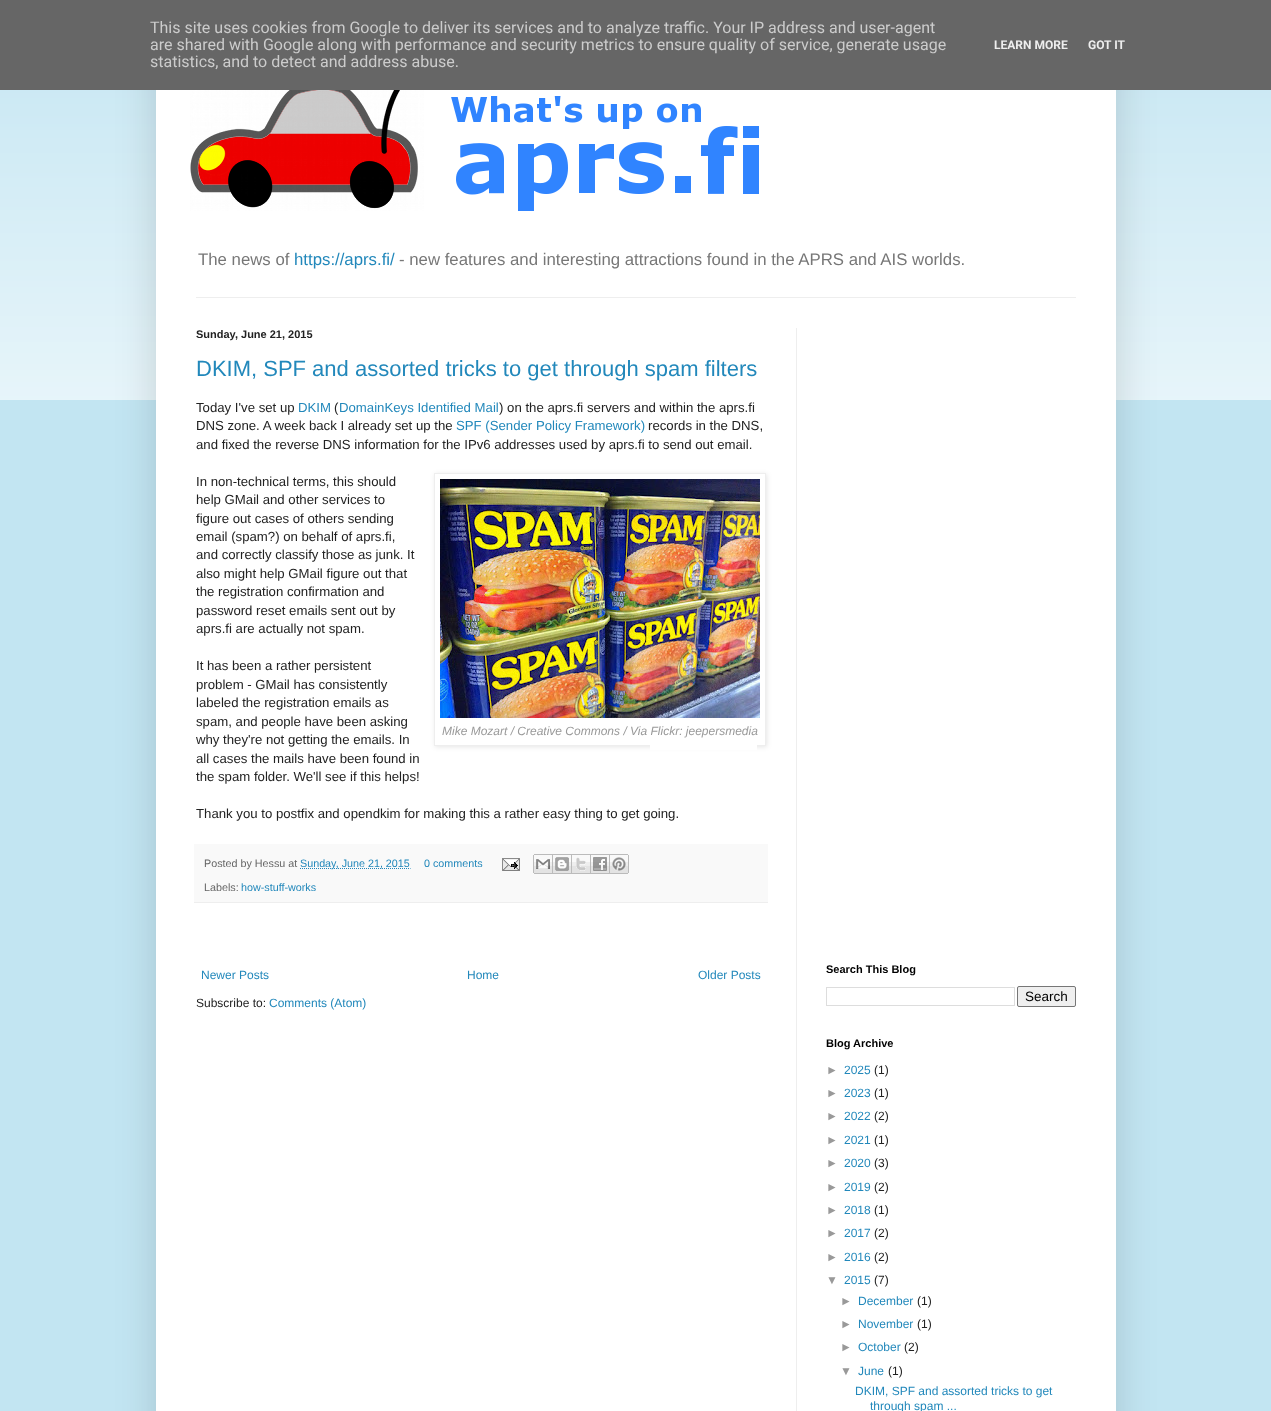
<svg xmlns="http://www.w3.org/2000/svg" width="1271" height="1411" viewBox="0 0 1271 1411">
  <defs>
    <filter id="blur1" x="-50%" y="-200%" width="200%" height="500%"><feGaussianBlur stdDeviation="20"/></filter>
    <clipPath id="clip1"><path d="M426 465H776V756H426ZM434 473H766V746H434Z" clip-rule="evenodd"/></clipPath>
    <filter id="blur2" x="-50%" y="-200%" width="200%" height="500%"><feGaussianBlur stdDeviation="2.5"/></filter>
  </defs>
  <rect width="100%" height="100%" fill="#c2e5f2"/>
  <image x="0" y="90" width="1271" height="310" href="img1.png"/>
  <rect x="156" y="30" width="960" height="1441" fill="#000000" fill-opacity="0.15" filter="url(#blur1)"/>
  <rect x="0" y="0" width="1271" height="90" fill="#666666"/>
  <text x="150" y="33" font-family="Roboto" font-size="16" fill="#cccccc">This site uses cookies from Google to deliver its services and to analyze traffic. Your IP address and user-agent</text>
  <text x="150" y="50" font-family="Roboto" font-size="16" fill="#cccccc">are shared with Google along with performance and security metrics to ensure quality of service, generate usage</text>
  <text x="150" y="67" font-family="Roboto" font-size="16" fill="#cccccc">statistics, and to detect and address abuse.</text>
  <text x="994" y="49" font-family="Roboto" font-size="12" font-weight="bold" fill="#eeeeee">LEARN MORE</text>
  <text x="1088" y="49" font-family="Roboto" font-size="12" font-weight="bold" fill="#eeeeee">GOT IT</text>
  <rect x="156" y="90" width="960" height="1321" fill="#ffffff"/>
  <image x="190" y="90" width="569" height="121" href="img2.png"/>
  <text x="198" y="265" font-family="Liberation Sans" font-size="16.8" fill="#777777">The news of</text>
  <text x="294" y="265" font-family="Liberation Sans" font-size="16.8" fill="#2288bb">https://aprs.fi/</text>
  <text x="399" y="265" font-family="Liberation Sans" font-size="16.8" fill="#777777">- new features and interesting attractions found in the APRS and AIS worlds.</text>
  <rect x="196" y="297" width="880" height="1" fill="#eeeeee"/>
  <rect x="796" y="328" width="1" height="1083" fill="#eeeeee"/>
  <text x="196" y="338" font-family="Liberation Sans" font-size="11" font-weight="bold" fill="#222222">Sunday, June 21, 2015</text>
  <text x="196" y="376" font-family="Liberation Sans" font-size="22" fill="#2288bb">DKIM, SPF and assorted tricks to get through spam filters</text>
  <text x="196" y="412" font-family="Liberation Sans" font-size="13.2" fill="#222222">Today I've set up</text>
  <text x="298" y="412" font-family="Liberation Sans" font-size="13.2" fill="#2288bb">DKIM</text>
  <text x="334" y="412" font-family="Liberation Sans" font-size="13.2" fill="#222222">(</text>
  <text x="339" y="412" font-family="Liberation Sans" font-size="13.2" fill="#2288bb">DomainKeys Identified Mail</text>
  <text x="499" y="412" font-family="Liberation Sans" font-size="13.2" fill="#222222">) on the aprs.fi servers and within the aprs.fi</text>
  <text x="196" y="430" font-family="Liberation Sans" font-size="13.2" fill="#222222">DNS zone. A week back I already set up the</text>
  <text x="456" y="430" font-family="Liberation Sans" font-size="13.2" fill="#2288bb">SPF (Sender Policy Framework)</text>
  <text x="648" y="430" font-family="Liberation Sans" font-size="13.2" fill="#222222">records in the DNS,</text>
  <text x="196" y="449" font-family="Liberation Sans" font-size="13.2" fill="#222222">and fixed the reverse DNS information for the IPv6 addresses used by aprs.fi to send out email.</text>
  <text x="196" y="486" font-family="Liberation Sans" font-size="13.2" fill="#222222">In non-technical terms, this should</text>
  <text x="196" y="504" font-family="Liberation Sans" font-size="13.2" fill="#222222">help GMail and other services to</text>
  <text x="196" y="523" font-family="Liberation Sans" font-size="13.2" fill="#222222">figure out cases of others sending</text>
  <text x="196" y="541" font-family="Liberation Sans" font-size="13.2" fill="#222222">email (spam?) on behalf of aprs.fi,</text>
  <text x="196" y="559" font-family="Liberation Sans" font-size="13.2" fill="#222222">and correctly classify those as junk. It</text>
  <text x="196" y="578" font-family="Liberation Sans" font-size="13.2" fill="#222222">also might help GMail figure out that</text>
  <text x="196" y="596" font-family="Liberation Sans" font-size="13.2" fill="#222222">the registration confirmation and</text>
  <text x="196" y="615" font-family="Liberation Sans" font-size="13.2" fill="#222222">password reset emails sent out by</text>
  <text x="196" y="633" font-family="Liberation Sans" font-size="13.2" fill="#222222">aprs.fi are actually not spam.</text>
  <text x="196" y="670" font-family="Liberation Sans" font-size="13.2" fill="#222222">It has been a rather persistent</text>
  <text x="196" y="689" font-family="Liberation Sans" font-size="13.2" fill="#222222">problem - GMail has consistently</text>
  <text x="196" y="707" font-family="Liberation Sans" font-size="13.2" fill="#222222">labeled the registration emails as</text>
  <text x="196" y="726" font-family="Liberation Sans" font-size="13.2" fill="#222222">spam, and people have been asking</text>
  <text x="196" y="744" font-family="Liberation Sans" font-size="13.2" fill="#222222">why they're not getting the emails. In</text>
  <text x="196" y="763" font-family="Liberation Sans" font-size="13.2" fill="#222222">all cases the mails have been found in</text>
  <text x="196" y="781" font-family="Liberation Sans" font-size="13.2" fill="#222222">the spam folder. We'll see if this helps!</text>
  <g clip-path="url(#clip1)">
    <rect x="435" y="474" width="332" height="273" fill="#000000" fill-opacity="0.1" filter="url(#blur2)"/>
  </g>
  <rect x="434.5" y="473.5" width="331" height="272" fill="none" stroke="#eeeeee"/>
  <image x="440" y="479" width="320" height="239" href="img3.png"/>
  <text x="442" y="735" font-family="Liberation Sans" font-size="12" font-style="italic" fill="#999999">Mike Mozart / Creative Commons / Via Flickr: jeepersmedia</text>
  <rect x="650" y="745" width="107" height="5" fill="#ffffff"/>
  <text x="196" y="818" font-family="Liberation Sans" font-size="13.2" fill="#222222">Thank you to postfix and opendkim for making this a rather easy thing to get going.</text>
  <rect x="194" y="844" width="574" height="58" fill="#f9f9f9"/>
  <rect x="194" y="902" width="574" height="1" fill="#eeeeee"/>
  <text x="204" y="867" font-family="Liberation Sans" font-size="10.75" fill="#666666">Posted by Hessu at</text>
  <path d="M300 868.5H410.5" fill="none" stroke="#2288bb" stroke-dasharray="1 1"/>
  <text x="300" y="867" font-family="Liberation Sans" font-size="10.75" fill="#2288bb">Sunday, June 21, 2015</text>
  <text x="424" y="867" font-family="Liberation Sans" font-size="10.75" fill="#2288bb">0 comments</text>
  <image x="502" y="858" width="18" height="13" href="img4.png"/>
  <image x="533" y="854" width="20" height="20" href="img5.png"/>
  <image x="553" y="854" width="19" height="20" href="img6.png"/>
  <image x="572" y="854" width="19" height="20" href="img7.png"/>
  <image x="591" y="854" width="19" height="20" href="img8.png"/>
  <image x="610" y="854" width="19" height="20" href="img9.png"/>
  <text x="204" y="891" font-family="Liberation Sans" font-size="10.75" fill="#666666">Labels:</text>
  <text x="241" y="891" font-family="Liberation Sans" font-size="10.75" fill="#2288bb">how-stuff-works</text>
  <text x="201" y="979" font-family="Liberation Sans" font-size="12" fill="#2288bb">Newer Posts</text>
  <text x="467" y="979" font-family="Liberation Sans" font-size="12" fill="#2288bb">Home</text>
  <text x="698" y="979" font-family="Liberation Sans" font-size="12" fill="#2288bb">Older Posts</text>
  <text x="196" y="1007" font-family="Liberation Sans" font-size="12" fill="#222222">Subscribe to:</text>
  <text x="269" y="1007" font-family="Liberation Sans" font-size="12" fill="#2288bb">Comments (Atom)</text>
  <text x="826" y="973" font-family="Liberation Sans" font-size="11" font-weight="bold" fill="#000000">Search This Blog</text>
  <rect x="826.5" y="987.5" width="188" height="18" fill="none" stroke="#dddddd"/>
  <rect x="1017.5" y="986.5" width="58" height="20" rx="1.5" fill="#efefef" stroke="#767676"/>
  <text x="1025" y="1001" font-family="Liberation Sans" font-size="13.5" fill="#000000">Search</text>
  <text x="826" y="1047" font-family="Liberation Sans" font-size="11" font-weight="bold" fill="#000000">Blog Archive</text>
  <text x="826" y="1074" font-family="Liberation Sans" font-size="12" fill="#999999">►</text>
  <text x="844" y="1074" font-family="Liberation Sans" font-size="12" fill="#2288bb">2025</text>
  <text x="874" y="1074" font-family="Liberation Sans" font-size="12" fill="#222222">(1)</text>
  <text x="826" y="1097" font-family="Liberation Sans" font-size="12" fill="#999999">►</text>
  <text x="844" y="1097" font-family="Liberation Sans" font-size="12" fill="#2288bb">2023</text>
  <text x="874" y="1097" font-family="Liberation Sans" font-size="12" fill="#222222">(1)</text>
  <text x="826" y="1120" font-family="Liberation Sans" font-size="12" fill="#999999">►</text>
  <text x="844" y="1120" font-family="Liberation Sans" font-size="12" fill="#2288bb">2022</text>
  <text x="874" y="1120" font-family="Liberation Sans" font-size="12" fill="#222222">(2)</text>
  <text x="826" y="1144" font-family="Liberation Sans" font-size="12" fill="#999999">►</text>
  <text x="844" y="1144" font-family="Liberation Sans" font-size="12" fill="#2288bb">2021</text>
  <text x="874" y="1144" font-family="Liberation Sans" font-size="12" fill="#222222">(1)</text>
  <text x="826" y="1167" font-family="Liberation Sans" font-size="12" fill="#999999">►</text>
  <text x="844" y="1167" font-family="Liberation Sans" font-size="12" fill="#2288bb">2020</text>
  <text x="874" y="1167" font-family="Liberation Sans" font-size="12" fill="#222222">(3)</text>
  <text x="826" y="1191" font-family="Liberation Sans" font-size="12" fill="#999999">►</text>
  <text x="844" y="1191" font-family="Liberation Sans" font-size="12" fill="#2288bb">2019</text>
  <text x="874" y="1191" font-family="Liberation Sans" font-size="12" fill="#222222">(2)</text>
  <text x="826" y="1214" font-family="Liberation Sans" font-size="12" fill="#999999">►</text>
  <text x="844" y="1214" font-family="Liberation Sans" font-size="12" fill="#2288bb">2018</text>
  <text x="874" y="1214" font-family="Liberation Sans" font-size="12" fill="#222222">(1)</text>
  <text x="826" y="1237" font-family="Liberation Sans" font-size="12" fill="#999999">►</text>
  <text x="844" y="1237" font-family="Liberation Sans" font-size="12" fill="#2288bb">2017</text>
  <text x="874" y="1237" font-family="Liberation Sans" font-size="12" fill="#222222">(2)</text>
  <text x="826" y="1261" font-family="Liberation Sans" font-size="12" fill="#999999">►</text>
  <text x="844" y="1261" font-family="Liberation Sans" font-size="12" fill="#2288bb">2016</text>
  <text x="874" y="1261" font-family="Liberation Sans" font-size="12" fill="#222222">(2)</text>
  <text x="826" y="1284" font-family="Liberation Sans" font-size="12" fill="#999999">▼</text>
  <text x="844" y="1284" font-family="Liberation Sans" font-size="12" fill="#2288bb">2015</text>
  <text x="874" y="1284" font-family="Liberation Sans" font-size="12" fill="#222222">(7)</text>
  <text x="840" y="1305" font-family="Liberation Sans" font-size="12" fill="#999999">►</text>
  <text x="858" y="1305" font-family="Liberation Sans" font-size="12" fill="#2288bb">December</text>
  <text x="917" y="1305" font-family="Liberation Sans" font-size="12" fill="#222222">(1)</text>
  <text x="840" y="1328" font-family="Liberation Sans" font-size="12" fill="#999999">►</text>
  <text x="858" y="1328" font-family="Liberation Sans" font-size="12" fill="#2288bb">November</text>
  <text x="917" y="1328" font-family="Liberation Sans" font-size="12" fill="#222222">(1)</text>
  <text x="840" y="1351" font-family="Liberation Sans" font-size="12" fill="#999999">►</text>
  <text x="858" y="1351" font-family="Liberation Sans" font-size="12" fill="#2288bb">October</text>
  <text x="904" y="1351" font-family="Liberation Sans" font-size="12" fill="#222222">(2)</text>
  <text x="840" y="1375" font-family="Liberation Sans" font-size="12" fill="#999999">▼</text>
  <text x="858" y="1375" font-family="Liberation Sans" font-size="12" fill="#2288bb">June</text>
  <text x="888" y="1375" font-family="Liberation Sans" font-size="12" fill="#222222">(1)</text>
  <text x="855" y="1395" font-family="Liberation Sans" font-size="12" fill="#2288bb">DKIM, SPF and assorted tricks to get</text>
  <text x="870" y="1410" font-family="Liberation Sans" font-size="12" fill="#2288bb">through spam ...</text>
</svg>
